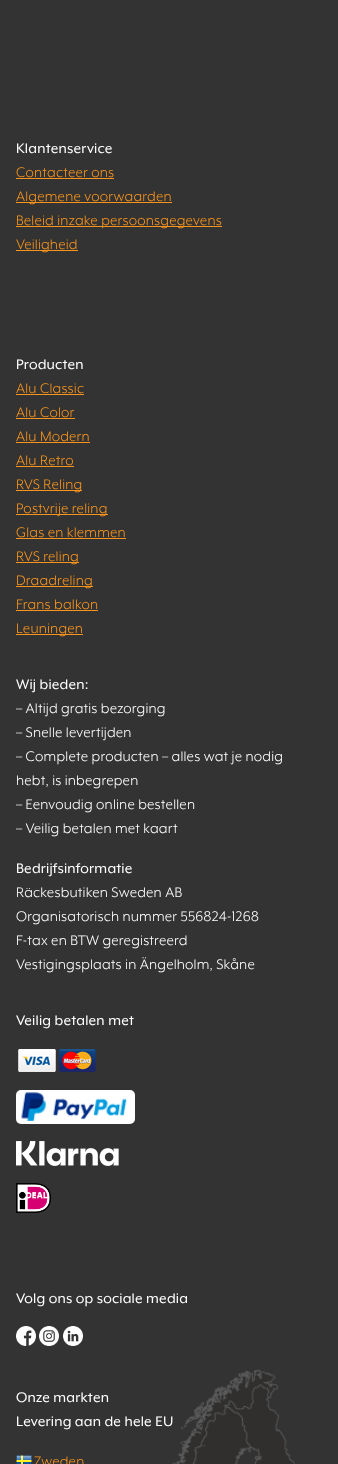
<svg xmlns="http://www.w3.org/2000/svg" width="338" height="1464" viewBox="0 0 338 1464">
  <rect width="100%" height="100%" fill="#333333"/>
  <text x="16" y="153" font-family="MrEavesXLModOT" font-size="16" letter-spacing="0.2" fill="#ffffff">Klantenservice</text>
  <text x="16" y="177" font-family="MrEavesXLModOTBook" font-size="16" letter-spacing="0.2" fill="#f7941e">Contacteer ons</text>
  <rect x="16" y="178" width="98" height="1" fill="#f7941e"/>
  <rect x="16" y="202" width="156" height="1" fill="#f7941e"/>
  <text x="16" y="201" font-family="MrEavesXLModOTBook" font-size="16" letter-spacing="0.2" fill="#f7941e">Algemene voorwaarden</text>
  <rect x="16" y="226" width="206" height="1" fill="#f7941e"/>
  <text x="16" y="225" font-family="MrEavesXLModOTBook" font-size="16" letter-spacing="0.2" fill="#f7941e">Beleid inzake persoonsgegevens</text>
  <rect x="16" y="250" width="62" height="1" fill="#f7941e"/>
  <text x="16" y="249" font-family="MrEavesXLModOTBook" font-size="16" letter-spacing="0.2" fill="#f7941e">Veiligheid</text>
  <text x="16" y="369" font-family="MrEavesXLModOT" font-size="16" letter-spacing="0.2" fill="#ffffff">Producten</text>
  <text x="16" y="393" font-family="MrEavesXLModOTBook" font-size="16" letter-spacing="0.2" fill="#f7941e">Alu Classic</text>
  <rect x="16" y="394" width="68" height="1" fill="#f7941e"/>
  <text x="16" y="417" font-family="MrEavesXLModOTBook" font-size="16" letter-spacing="0.2" fill="#f7941e">Alu Color</text>
  <rect x="16" y="418" width="59" height="1" fill="#f7941e"/>
  <text x="16" y="441" font-family="MrEavesXLModOTBook" font-size="16" letter-spacing="0.2" fill="#f7941e">Alu Modern</text>
  <rect x="16" y="442" width="74" height="1" fill="#f7941e"/>
  <text x="16" y="465" font-family="MrEavesXLModOTBook" font-size="16" letter-spacing="0.2" fill="#f7941e">Alu Retro</text>
  <rect x="16" y="466" width="58" height="1" fill="#f7941e"/>
  <rect x="16" y="490" width="66" height="1" fill="#f7941e"/>
  <text x="16" y="489" font-family="MrEavesXLModOTBook" font-size="16" letter-spacing="0.2" fill="#f7941e">RVS Reling</text>
  <rect x="16" y="514" width="92" height="1" fill="#f7941e"/>
  <text x="16" y="513" font-family="MrEavesXLModOTBook" font-size="16" letter-spacing="0.2" fill="#f7941e">Postvrije reling</text>
  <text x="16" y="537" font-family="MrEavesXLModOTBook" font-size="16" letter-spacing="0.2" fill="#f7941e">Glas en klemmen</text>
  <rect x="16" y="538" width="110" height="1" fill="#f7941e"/>
  <rect x="16" y="562" width="63" height="1" fill="#f7941e"/>
  <text x="16" y="561" font-family="MrEavesXLModOTBook" font-size="16" letter-spacing="0.2" fill="#f7941e">RVS reling</text>
  <rect x="16" y="586" width="77" height="1" fill="#f7941e"/>
  <text x="16" y="585" font-family="MrEavesXLModOTBook" font-size="16" letter-spacing="0.2" fill="#f7941e">Draadreling</text>
  <text x="16" y="609" font-family="MrEavesXLModOTBook" font-size="16" letter-spacing="0.2" fill="#f7941e">Frans balkon</text>
  <rect x="16" y="610" width="82" height="1" fill="#f7941e"/>
  <rect x="16" y="634" width="67" height="1" fill="#f7941e"/>
  <text x="16" y="633" font-family="MrEavesXLModOTBook" font-size="16" letter-spacing="0.2" fill="#f7941e">Leuningen</text>
  <text x="16" y="689" font-family="MrEavesXLModOT" font-size="16" letter-spacing="0.2" fill="#ffffff">Wij bieden:</text>
  <text x="16" y="713" font-family="MrEavesXLModOTBook" font-size="16" letter-spacing="0.2" fill="#ffffff">– Altijd gratis bezorging</text>
  <text x="16" y="737" font-family="MrEavesXLModOTBook" font-size="16" letter-spacing="0.2" fill="#ffffff">– Snelle levertijden</text>
  <text x="16" y="761" font-family="MrEavesXLModOTBook" font-size="16" letter-spacing="0.2" fill="#ffffff">– Complete producten – alles wat je nodig</text>
  <text x="16" y="785" font-family="MrEavesXLModOTBook" font-size="16" letter-spacing="0.2" fill="#ffffff">hebt, is inbegrepen</text>
  <text x="16" y="809" font-family="MrEavesXLModOTBook" font-size="16" letter-spacing="0.2" fill="#ffffff">– Eenvoudig online bestellen</text>
  <text x="16" y="833" font-family="MrEavesXLModOTBook" font-size="16" letter-spacing="0.2" fill="#ffffff">– Veilig betalen met kaart</text>
  <text x="16" y="873" font-family="MrEavesXLModOT" font-size="16" letter-spacing="0.2" fill="#ffffff">Bedrijfsinformatie</text>
  <text x="16" y="897" font-family="MrEavesXLModOTBook" font-size="16" letter-spacing="0.2" fill="#ffffff">Räckesbutiken Sweden AB</text>
  <text x="16" y="921" font-family="MrEavesXLModOTBook" font-size="16" letter-spacing="0.2" fill="#ffffff">Organisatorisch nummer 556824-1268</text>
  <text x="16" y="945" font-family="MrEavesXLModOTBook" font-size="16" letter-spacing="0.2" fill="#ffffff">F-tax en BTW geregistreerd</text>
  <text x="16" y="969" font-family="MrEavesXLModOTBook" font-size="16" letter-spacing="0.2" fill="#ffffff">Vestigingsplaats in Ängelholm, Skåne</text>
  <text x="16" y="1025" font-family="MrEavesXLModOT" font-size="16" letter-spacing="0.2" fill="#ffffff">Veilig betalen met</text>
  <image x="18" y="1049" width="78" height="23" href="img1.png"/>
  <rect x="16" y="1090" width="119" height="34" rx="5" fill="#ffffff"/>
  <image x="21" y="1092" width="106" height="29" href="img2.png"/>
  <image x="16" y="1141" width="103" height="25" href="img3.png"/>
  <image x="16" y="1183" width="35" height="30" href="img4.png"/>
  <text x="16" y="1303" font-family="MrEavesXLModOT" font-size="16" letter-spacing="0.2" fill="#ffffff">Volg ons op sociale media</text>
  <image x="16" y="1326" width="20" height="20" href="img5.png"/>
  <image x="39" y="1326" width="20" height="20" href="img6.png"/>
  <image x="63" y="1326" width="20" height="20" href="img7.png"/>
  <text x="16" y="1402" font-family="MrEavesXLModOT" font-size="16" letter-spacing="0.2" fill="#ffffff">Onze markten</text>
  <image x="172" y="1369" width="123" height="95" href="img8.png"/>
  <text x="16" y="1426" font-family="MrEavesXLModOT" font-size="16" letter-spacing="0.2" fill="#ffffff">Levering aan de hele EU</text>
  <image x="16" y="1455" width="16" height="9" href="img9.png"/>
  <text x="34" y="1466" font-family="MrEavesXLModOTBook" font-size="16" letter-spacing="0.2" fill="#f7941e">Zweden</text>
</svg>
